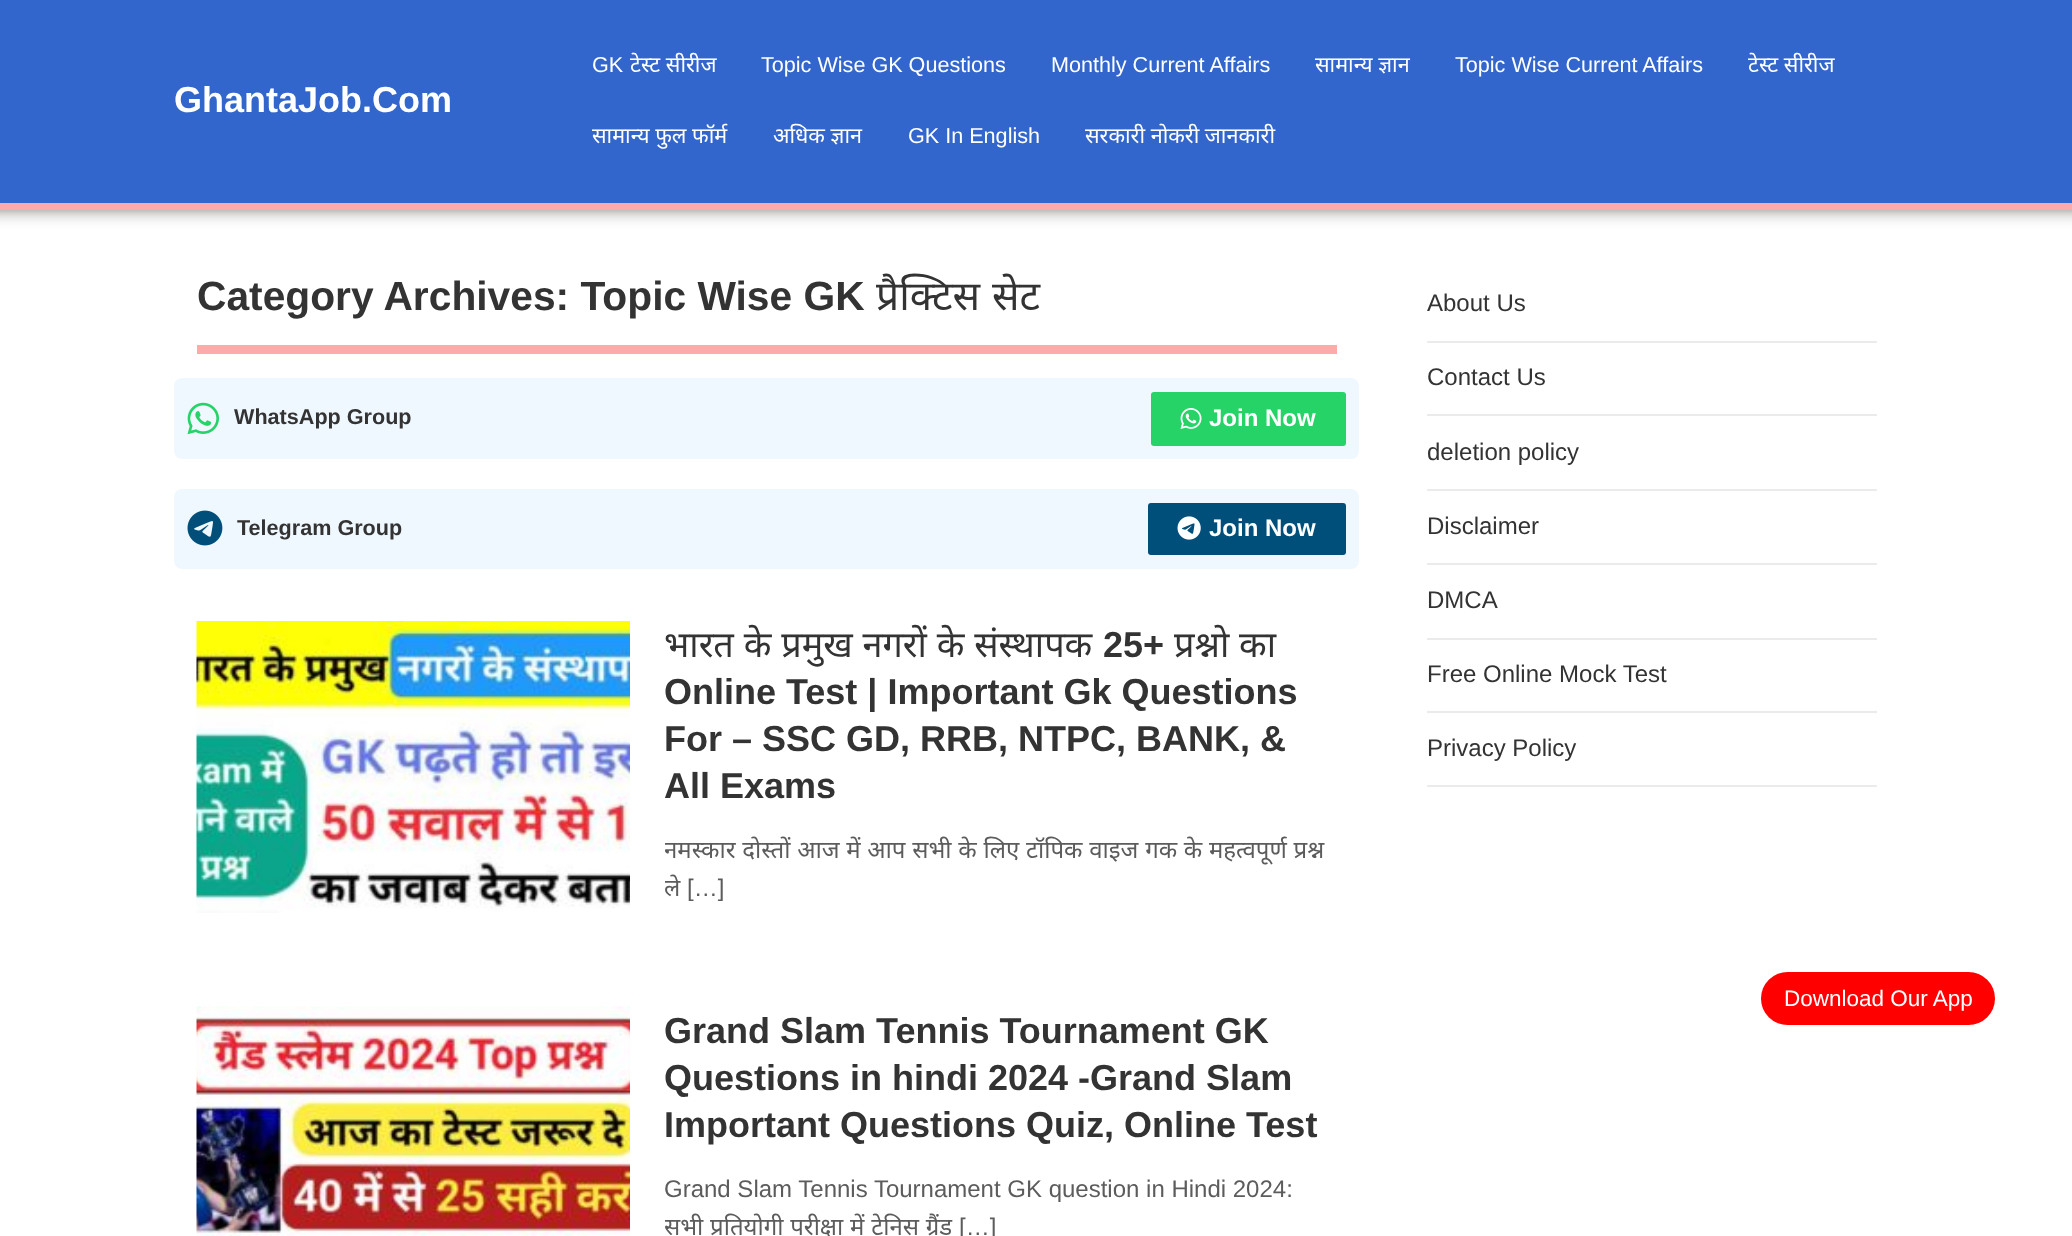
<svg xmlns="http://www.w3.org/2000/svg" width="2072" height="1236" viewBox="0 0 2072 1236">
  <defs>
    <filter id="blur1" x="-50%" y="-200%" width="200%" height="500%"><feGaussianBlur stdDeviation="11"/></filter>
    <clipPath id="clip1"><rect x="665" y="621" width="672" height="188" rx="8"/></clipPath>
    <clipPath id="clip2"><rect x="665" y="831" width="672" height="77"/></clipPath>
    <clipPath id="clip3"><rect x="665" y="1170" width="672" height="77"/></clipPath>
  </defs>
  <rect width="100%" height="100%" fill="#ffffff"/>
  <rect x="-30" y="-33" width="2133" height="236" fill="#000000" filter="url(#blur1)"/>
  <rect x="0" y="0" width="2072" height="203" fill="#3366cc"/>
  <rect x="0" y="203" width="2072" height="7" fill="#ffaaaa"/>
  <text x="174" y="112" font-family="Liberation Sans" font-size="36" font-weight="bold" fill="#ffffff">GhantaJob.Com</text>
  <text x="592" y="72" font-family="Liberation Sans" font-size="21.6" fill="#ffffff">GK</text>
  <text x="630" y="72" font-family="Noto Sans" font-size="21.6" fill="#ffffff">टेस्ट सीरीज</text>
  <text x="761" y="72" font-family="Liberation Sans" font-size="21.6" fill="#ffffff">Topic Wise GK Questions</text>
  <text x="1051" y="72" font-family="Liberation Sans" font-size="21.6" fill="#ffffff">Monthly Current Affairs</text>
  <text x="1315" y="72" font-family="Noto Sans" font-size="21.6" fill="#ffffff">सामान्य ज्ञान</text>
  <text x="1455" y="72" font-family="Liberation Sans" font-size="21.6" fill="#ffffff">Topic Wise Current Affairs</text>
  <text x="1748" y="72" font-family="Noto Sans" font-size="21.6" fill="#ffffff">टेस्ट सीरीज</text>
  <text x="592" y="143" font-family="Noto Sans" font-size="21.6" fill="#ffffff">सामान्य फुल फॉर्म</text>
  <text x="773" y="143" font-family="Noto Sans" font-size="21.6" fill="#ffffff">अधिक ज्ञान</text>
  <text x="908" y="143" font-family="Liberation Sans" font-size="21.6" fill="#ffffff">GK In English</text>
  <text x="1085" y="143" font-family="Noto Sans" font-size="21.6" fill="#ffffff">सरकारी नोकरी जानकारी</text>
  <rect x="197" y="345" width="1140" height="9" fill="#ffaaaa"/>
  <text x="197" y="310" font-family="Liberation Sans" font-size="40.75" font-weight="bold" fill="#333333">Category Archives: Topic Wise GK</text>
  <text x="876" y="310" font-family="Noto Sans" font-size="40.75" fill="#333333">प्रैक्टिस</text>
  <text x="992" y="310" font-family="Noto Sans" font-size="40.75" fill="#333333">सेट</text>
  <rect x="174" y="378" width="1185" height="81" rx="8" fill="#f0f8ff"/>
  <image x="187" y="402" width="32" height="33" href="img1.png"/>
  <text x="234" y="424" font-family="Liberation Sans" font-size="21.6" font-weight="bold" fill="#333333">WhatsApp Group</text>
  <rect x="1151" y="392" width="195" height="54" rx="3" fill="#25d366"/>
  <image x="1180" y="408" width="22" height="21" href="img2.png"/>
  <text x="1209" y="426" font-family="Liberation Sans" font-size="24" font-weight="bold" fill="#ffffff">Join Now</text>
  <rect x="174" y="489" width="1185" height="80" rx="8" fill="#f0f8ff"/>
  <image x="187" y="510" width="36" height="36" href="img3.png"/>
  <text x="237" y="535" font-family="Liberation Sans" font-size="21.6" font-weight="bold" fill="#333333">Telegram Group</text>
  <rect x="1148" y="503" width="198" height="52" rx="3" fill="#004f7a"/>
  <image x="1177" y="516" width="24" height="24" href="img4.png"/>
  <text x="1209" y="536" font-family="Liberation Sans" font-size="24" font-weight="bold" fill="#ffffff">Join Now</text>
  <image x="196" y="621" width="434" height="292" href="img5.png"/>
  <g clip-path="url(#clip1)">
    <text x="664" y="657" word-spacing="0.5" font-family="Noto Sans" font-size="36" fill="#333333">भारत के प्रमुख नगरों के संस्थापक</text>
  </g>
  <text x="1103" y="657" font-family="Liberation Sans" font-size="36" font-weight="bold" fill="#333333">25+</text>
  <text x="1174" y="657" word-spacing="0.5" font-family="Noto Sans" font-size="36" fill="#333333">प्रश्नो का</text>
  <text x="664" y="704" font-family="Liberation Sans" font-size="36" font-weight="bold" fill="#333333">Online Test | Important Gk Questions</text>
  <text x="664" y="751" font-family="Liberation Sans" font-size="36" font-weight="bold" fill="#333333">For – SSC GD, RRB, NTPC, BANK, &amp;</text>
  <text x="664" y="798" font-family="Liberation Sans" font-size="36" font-weight="bold" fill="#333333">All Exams</text>
  <g clip-path="url(#clip2)">
    <text x="664" y="858" word-spacing="0.5" font-family="Noto Sans" font-size="24" fill="#5c5c5c">नमस्कार दोस्तों आज में आप सभी के लिए टॉपिक वाइज गक के महत्वपूर्ण प्रश्न</text>
    <text x="664" y="896" font-family="Noto Sans" font-size="24" fill="#5c5c5c">ले</text>
  </g>
  <text x="687" y="896" font-family="Liberation Sans" font-size="24" fill="#5c5c5c">[…]</text>
  <image x="196" y="1006" width="434" height="230" href="img6.png"/>
  <text x="664" y="1043" font-family="Liberation Sans" font-size="36" font-weight="bold" fill="#333333">Grand Slam Tennis Tournament GK</text>
  <text x="664" y="1090" font-family="Liberation Sans" font-size="36" font-weight="bold" fill="#333333">Questions in hindi 2024 -Grand Slam</text>
  <text x="664" y="1137" font-family="Liberation Sans" font-size="36" font-weight="bold" fill="#333333">Important Questions Quiz, Online Test</text>
  <text x="664" y="1197" font-family="Liberation Sans" font-size="24" fill="#5c5c5c">Grand Slam Tennis Tournament GK question in Hindi 2024:</text>
  <g clip-path="url(#clip3)">
    <text x="664" y="1235" word-spacing="0.5" font-family="Noto Sans" font-size="24" fill="#5c5c5c">सभी प्रतियोगी परीक्षा में टेनिस ग्रैंड</text>
  </g>
  <text x="959" y="1235" font-family="Liberation Sans" font-size="24" fill="#5c5c5c">[…]</text>
  <rect x="1427" y="341" width="450" height="2" fill="#ebebeb"/>
  <text x="1427" y="311" font-family="Liberation Sans" font-size="24" fill="#333333">About Us</text>
  <rect x="1427" y="414" width="450" height="2" fill="#ebebeb"/>
  <text x="1427" y="385" font-family="Liberation Sans" font-size="24" fill="#333333">Contact Us</text>
  <rect x="1427" y="489" width="450" height="2" fill="#ebebeb"/>
  <text x="1427" y="460" font-family="Liberation Sans" font-size="24" fill="#333333">deletion policy</text>
  <rect x="1427" y="563" width="450" height="2" fill="#ebebeb"/>
  <text x="1427" y="534" font-family="Liberation Sans" font-size="24" fill="#333333">Disclaimer</text>
  <rect x="1427" y="638" width="450" height="2" fill="#ebebeb"/>
  <text x="1427" y="608" font-family="Liberation Sans" font-size="24" fill="#333333">DMCA</text>
  <rect x="1427" y="711" width="450" height="2" fill="#ebebeb"/>
  <text x="1427" y="682" font-family="Liberation Sans" font-size="24" fill="#333333">Free Online Mock Test</text>
  <rect x="1427" y="785" width="450" height="2" fill="#ebebeb"/>
  <text x="1427" y="756" font-family="Liberation Sans" font-size="24" fill="#333333">Privacy Policy</text>
  <rect x="1761" y="972" width="234" height="53" rx="26.5" fill="#ff0000"/>
  <text x="1784" y="1006" font-family="Liberation Sans" font-size="22.5" fill="#ffffff">Download Our App</text>
</svg>
